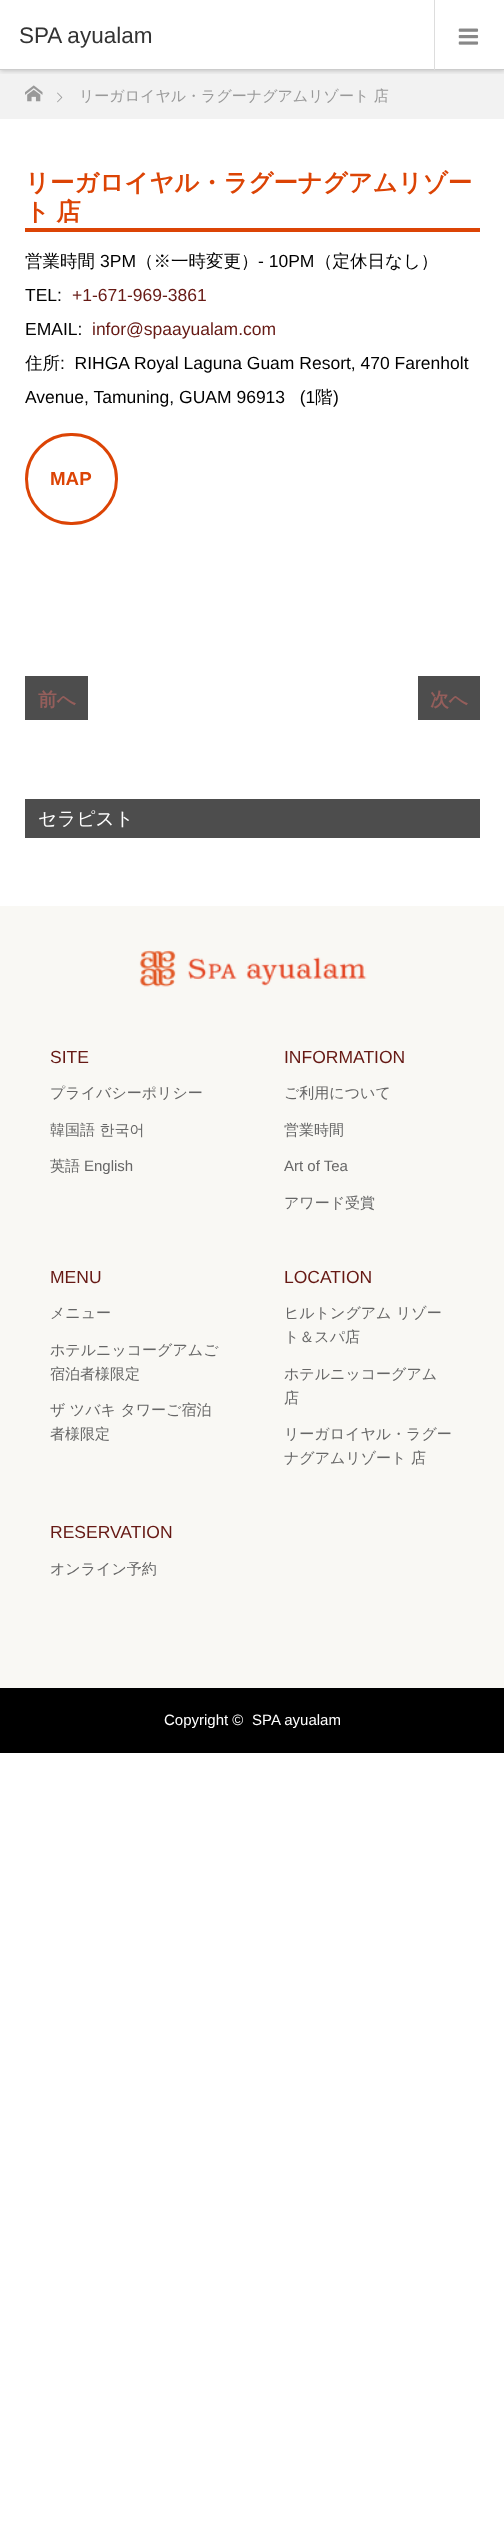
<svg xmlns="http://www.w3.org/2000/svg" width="504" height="2534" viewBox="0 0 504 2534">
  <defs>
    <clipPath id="clip1"><rect x="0" y="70" width="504" height="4"/></clipPath>
    <filter id="blur1" x="-50%" y="-200%" width="200%" height="500%"><feGaussianBlur stdDeviation="2.5"/></filter>
  </defs>
  <rect width="100%" height="100%" fill="#ffffff"/>
  <rect x="0" y="70" width="504" height="49" fill="#f2f2f2"/>
  <g clip-path="url(#clip1)">
    <rect x="0" y="1" width="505" height="70" fill="#000000" fill-opacity="0.2" filter="url(#blur1)"/>
  </g>
  <rect x="0" y="69" width="504" height="1" fill="#cccccc"/>
  <text x="19" y="43" font-family="Liberation Sans" font-size="22.5" fill="#333333">SPA ayualam</text>
  <rect x="434" y="0" width="1" height="70" fill="#dddddd"/>
  <image x="458" y="28" width="21" height="17" href="img1.png"/>
  <image x="25" y="85" width="18" height="17" href="img2.png"/>
  <image x="57" y="92" width="6" height="11" href="img3.png"/>
  <text x="79" y="101" font-family="WenQuanYi Zen Hei" font-size="15" font-weight="500" fill="#999999">リーガロイヤル・ラグーナグアムリゾート 店</text>
  <rect x="25" y="228" width="455" height="4" fill="#dc4405"/>
  <text x="25" y="191" font-family="WenQuanYi Zen Hei" font-size="24.4" font-weight="bold" fill="#dc4405">リーガロイヤル・ラグーナグアムリゾー</text>
  <text x="25" y="220" word-spacing="-1" font-family="WenQuanYi Zen Hei" font-size="24.4" font-weight="bold" fill="#dc4405">ト 店</text>
  <text x="25" y="267" font-family="WenQuanYi Zen Hei" font-size="17.5" font-weight="500" fill="#000000">営業時間</text>
  <text x="100" y="267" font-family="Liberation Sans" font-size="17.5" fill="#000000">3PM</text>
  <text x="136" y="267" font-family="WenQuanYi Zen Hei" font-size="17.5" font-weight="500" fill="#000000">（※一時変更）</text>
  <text x="258" y="267" font-family="Liberation Sans" font-size="17.5" fill="#000000">- 10PM</text>
  <text x="315" y="267" font-family="WenQuanYi Zen Hei" font-size="17.5" font-weight="500" fill="#000000">（定休日なし）</text>
  <text x="25" y="301" font-family="Liberation Sans" font-size="17.5" fill="#000000">TEL:</text>
  <text x="72" y="301" font-family="Liberation Sans" font-size="17.5" fill="#661914">+1-671-969-3861</text>
  <text x="25" y="335" font-family="Liberation Sans" font-size="17.5" fill="#000000">EMAIL:</text>
  <text x="92" y="335" font-family="Liberation Sans" font-size="17.5" fill="#661914">infor@spaayualam.com</text>
  <text x="25" y="369" font-family="WenQuanYi Zen Hei" font-size="17.5" font-weight="500" fill="#000000">住所</text>
  <text x="60" y="369" font-family="Liberation Sans" font-size="17.5" fill="#000000" xml:space="preserve">:  RIHGA Royal Laguna Guam Resort, 470 Farenholt</text>
  <text x="25" y="403" font-family="Liberation Sans" font-size="17.5" fill="#000000" xml:space="preserve">Avenue, Tamuning, GUAM 96913   (1</text>
  <text x="315" y="403" font-family="WenQuanYi Zen Hei" font-size="17.5" font-weight="500" fill="#000000">階</text>
  <text x="333" y="403" font-family="Liberation Sans" font-size="17.5" fill="#000000">)</text>
  <rect x="26.5" y="434.5" width="90" height="89" rx="44.5" fill="none" stroke="#dc4405" stroke-width="3"/>
  <text x="50" y="485" font-family="Liberation Sans" font-size="18.75" font-weight="bold" fill="#dc4405">MAP</text>
  <rect x="25" y="676" width="63" height="44" fill="#4d4d4d"/>
  <text x="38" y="706" font-family="WenQuanYi Zen Hei" font-size="18.75" font-weight="bold" fill="#945e5b">前へ</text>
  <rect x="418" y="676" width="62" height="44" fill="#4d4d4d"/>
  <text x="430" y="706" font-family="WenQuanYi Zen Hei" font-size="18.75" font-weight="bold" fill="#945e5b">次へ</text>
  <rect x="25" y="799" width="455" height="39" fill="#4d4d4d"/>
  <text x="38" y="825" font-family="WenQuanYi Zen Hei" font-size="18.75" font-weight="500" fill="#ffffff">セラピスト</text>
  <rect x="0" y="906" width="504" height="782" fill="#f9f8f4"/>
  <image x="139" y="950" width="228" height="37" href="img4.png"/>
  <text x="50" y="1063" font-family="Liberation Sans" font-size="17.5" fill="#661914">SITE</text>
  <text x="50" y="1098" font-family="WenQuanYi Zen Hei" font-size="15" font-weight="500" fill="#666666">プライバシーポリシー</text>
  <text x="50" y="1135" font-family="WenQuanYi Zen Hei" font-size="15" font-weight="500" fill="#666666">韓国語 한국어</text>
  <text x="50" y="1171" font-family="WenQuanYi Zen Hei" font-size="15" font-weight="500" fill="#666666">英語</text>
  <text x="84" y="1171" font-family="Liberation Sans" font-size="15" fill="#666666">English</text>
  <text x="284" y="1063" font-family="Liberation Sans" font-size="17.5" fill="#661914">INFORMATION</text>
  <text x="284" y="1098" font-family="WenQuanYi Zen Hei" font-size="15" font-weight="500" fill="#666666">ご利用について</text>
  <text x="284" y="1135" font-family="WenQuanYi Zen Hei" font-size="15" font-weight="500" fill="#666666">営業時間</text>
  <text x="284" y="1171" font-family="Liberation Sans" font-size="15" fill="#666666">Art of Tea</text>
  <text x="284" y="1208" font-family="WenQuanYi Zen Hei" font-size="15" font-weight="500" fill="#666666">アワード受賞</text>
  <text x="50" y="1283" font-family="Liberation Sans" font-size="17.5" fill="#661914">MENU</text>
  <text x="50" y="1318" font-family="WenQuanYi Zen Hei" font-size="15" font-weight="500" fill="#666666">メニュー</text>
  <text x="50" y="1355" font-family="WenQuanYi Zen Hei" font-size="15" font-weight="500" fill="#666666">ホテルニッコーグアムご</text>
  <text x="50" y="1379" font-family="WenQuanYi Zen Hei" font-size="15" font-weight="500" fill="#666666">宿泊者様限定</text>
  <text x="50" y="1415" font-family="WenQuanYi Zen Hei" font-size="15" font-weight="500" fill="#666666">ザ ツバキ タワーご宿泊</text>
  <text x="50" y="1439" font-family="WenQuanYi Zen Hei" font-size="15" font-weight="500" fill="#666666">者様限定</text>
  <text x="284" y="1283" font-family="Liberation Sans" font-size="17.5" fill="#661914">LOCATION</text>
  <text x="284" y="1318" font-family="WenQuanYi Zen Hei" font-size="15" font-weight="500" fill="#666666">ヒルトングアム リゾー</text>
  <text x="284" y="1342" font-family="WenQuanYi Zen Hei" font-size="15" font-weight="500" fill="#666666">ト＆スパ店</text>
  <text x="284" y="1379" font-family="WenQuanYi Zen Hei" font-size="15" font-weight="500" fill="#666666">ホテルニッコーグアム</text>
  <text x="284" y="1403" font-family="WenQuanYi Zen Hei" font-size="15" font-weight="500" fill="#666666">店</text>
  <text x="284" y="1439" font-family="WenQuanYi Zen Hei" font-size="15" font-weight="500" fill="#666666">リーガロイヤル・ラグー</text>
  <text x="284" y="1463" font-family="WenQuanYi Zen Hei" font-size="15" font-weight="500" fill="#666666">ナグアムリゾート 店</text>
  <text x="50" y="1538" font-family="Liberation Sans" font-size="17.5" fill="#661914">RESERVATION</text>
  <text x="50" y="1574" font-family="WenQuanYi Zen Hei" font-size="15" font-weight="500" fill="#666666">オンライン予約</text>
  <rect x="0" y="1688" width="504" height="65" fill="#000000"/>
  <text x="164" y="1725" font-family="Liberation Sans" font-size="15" fill="#ffffff">Copyright ©</text>
  <text x="252" y="1725" font-family="Liberation Sans" font-size="15" fill="#ffffff">SPA ayualam</text>
</svg>
